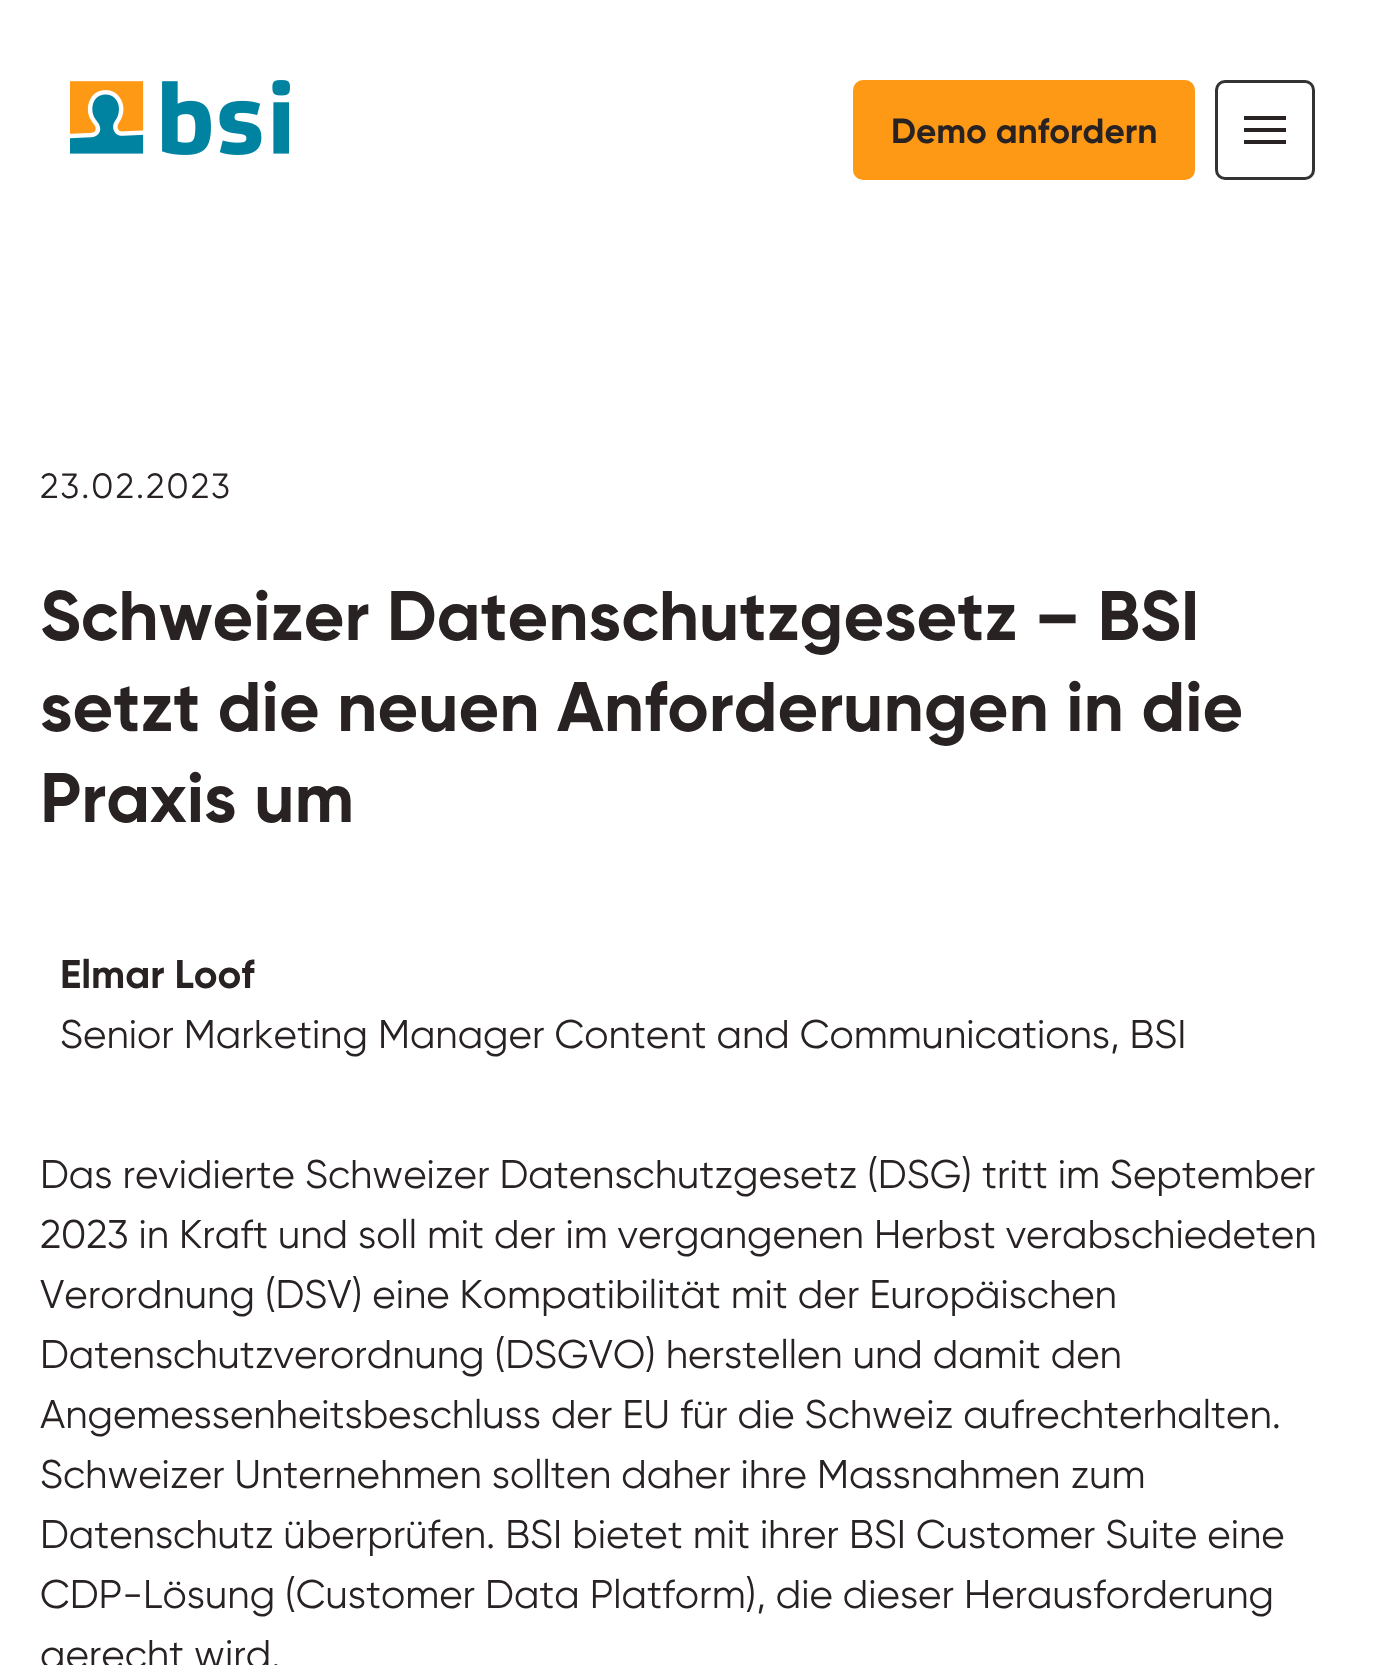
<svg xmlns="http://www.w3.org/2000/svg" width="1385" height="1665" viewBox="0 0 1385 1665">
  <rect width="100%" height="100%" fill="#ffffff"/>
  <image x="70" y="80" width="220" height="75" href="img1.png"/>
  <rect x="853" y="80" width="342" height="100" rx="10" fill="#fe9915"/>
  <text x="891" y="143" font-family="Gilroy" font-size="35" font-weight="bold" fill="#282322">Demo anfordern</text>
  <rect x="1216.5" y="81.5" width="97" height="97" rx="8.5" fill="none" stroke="#333333" stroke-width="3"/>
  <path d="M1244 144V140H1286V144ZM1244 132V128H1286V132ZM1244 120V116H1286V120Z" fill="#282322"/>
  <text x="40" y="498" font-family="Gilroy" font-size="35" letter-spacing="2.1" fill="#282322">23.02.2023</text>
  <text x="40" y="640" font-family="Gilroy" font-size="70" font-weight="bold" fill="#282322">Schweizer Datenschutzgesetz – BSI</text>
  <text x="40" y="731" font-family="Gilroy" font-size="70" font-weight="bold" fill="#282322">setzt die neuen Anforderungen in die</text>
  <text x="40" y="822" font-family="Gilroy" font-size="70" font-weight="bold" fill="#282322">Praxis um</text>
  <text x="60" y="988" font-family="Gilroy" font-size="40" font-weight="bold" fill="#282322">Elmar Loof</text>
  <text x="60" y="1048" font-family="Gilroy" font-size="40" fill="#282322">Senior Marketing Manager Content and Communications, BSI</text>
  <text x="40" y="1188" font-family="Gilroy" font-size="40" fill="#282322">Das revidierte Schweizer Datenschutzgesetz (DSG) tritt im September</text>
  <text x="40" y="1248" font-family="Gilroy" font-size="40" fill="#282322">2023 in Kraft und soll mit der im vergangenen Herbst verabschiedeten</text>
  <text x="40" y="1308" font-family="Gilroy" font-size="40" fill="#282322">Verordnung (DSV) eine Kompatibilität mit der Europäischen</text>
  <text x="40" y="1368" font-family="Gilroy" font-size="40" fill="#282322">Datenschutzverordnung (DSGVO) herstellen und damit den</text>
  <text x="40" y="1428" font-family="Gilroy" font-size="40" fill="#282322">Angemessenheitsbeschluss der EU für die Schweiz aufrechterhalten.</text>
  <text x="40" y="1488" font-family="Gilroy" font-size="40" fill="#282322">Schweizer Unternehmen sollten daher ihre Massnahmen zum</text>
  <text x="40" y="1548" font-family="Gilroy" font-size="40" fill="#282322">Datenschutz überprüfen. BSI bietet mit ihrer BSI Customer Suite eine</text>
  <text x="40" y="1608" font-family="Gilroy" font-size="40" fill="#282322">CDP-Lösung (Customer Data Platform), die dieser Herausforderung</text>
  <text x="40" y="1668" font-family="Gilroy" font-size="40" fill="#282322">gerecht wird.</text>
</svg>
